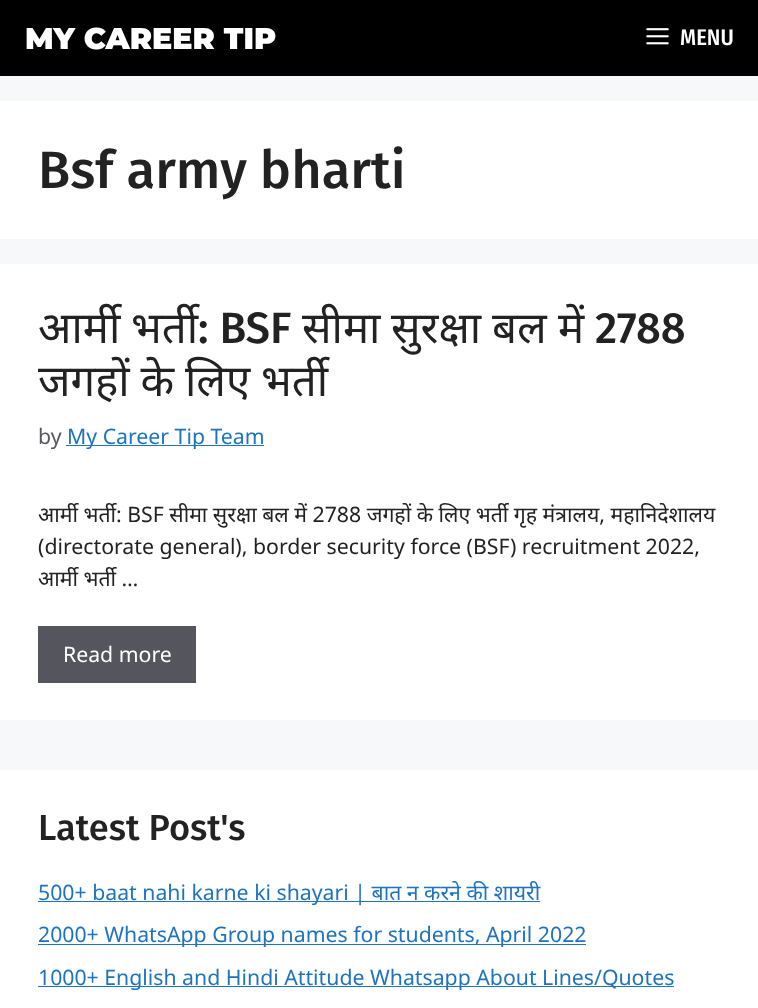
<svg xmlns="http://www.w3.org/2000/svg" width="758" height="1008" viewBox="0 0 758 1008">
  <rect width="100%" height="100%" fill="#f7f8f9"/>
  <rect x="0" y="0" width="758" height="76" fill="#000000"/>
  <text x="25" y="49" font-family="Montserrat" font-size="30" font-weight="900" fill="#ffffff">MY CAREER TIP</text>
  <image x="646" y="28" width="23" height="17" href="img1.png"/>
  <text x="680" y="45" font-family="Fira Sans Condensed" font-size="22.5" font-weight="500" fill="#ffffff">MENU</text>
  <rect x="0" y="101" width="758" height="138" fill="#ffffff"/>
  <text x="38" y="188" font-family="Fira Sans" font-size="52.5" font-weight="500" fill="#222222">Bsf army bharti</text>
  <rect x="0" y="264" width="758" height="456" fill="#ffffff"/>
  <text x="38" y="343" font-family="Noto Sans" font-size="43.75" fill="#222222">आर्मी</text>
  <text x="131" y="343" font-family="Noto Sans" font-size="43.75" fill="#222222">भर्ती</text>
  <text x="198" y="343" font-family="Fira Sans" font-size="43.75" font-weight="500" fill="#222222">: BSF</text>
  <text x="302" y="343" font-family="Noto Sans" font-size="43.75" fill="#222222">सीमा</text>
  <text x="391" y="343" font-family="Noto Sans" font-size="43.75" fill="#222222">सुरक्षा</text>
  <text x="492" y="343" font-family="Noto Sans" font-size="43.75" fill="#222222">बल</text>
  <text x="558" y="343" font-family="Noto Sans" font-size="43.75" fill="#222222">में</text>
  <text x="595" y="343" font-family="Fira Sans" font-size="43.75" font-weight="500" fill="#222222">2788</text>
  <text x="38" y="396" word-spacing="-0.5" font-family="Noto Sans" font-size="43.75" fill="#222222">जगहों के लिए भर्ती</text>
  <text x="38" y="444" font-family="Noto Sans" font-size="21.25" fill="#575760">by</text>
  <rect x="66" y="445" width="198" height="1" fill="#1e73be"/>
  <text x="67" y="444" font-family="Noto Sans" font-size="21.25" fill="#1e73be">My Career Tip Team</text>
  <text x="38" y="522" font-family="Noto Sans" font-size="21.25" fill="#222222">आर्मी भर्ती: BSF सीमा सुरक्षा बल में 2788 जगहों के लिए भर्ती गृह मंत्रालय, महानिदेशालय</text>
  <text x="38" y="554" font-family="Noto Sans" font-size="21.25" fill="#222222">(directorate general), border security force (BSF) recruitment 2022,</text>
  <text x="38" y="586" font-family="Noto Sans" font-size="21.25" fill="#222222">आर्मी भर्ती …</text>
  <rect x="38" y="626" width="158" height="57" fill="#55555e"/>
  <text x="63" y="662" font-family="Noto Sans" font-size="21.25" fill="#ffffff">Read more</text>
  <rect x="0" y="770" width="758" height="238" fill="#ffffff"/>
  <text x="38" y="840" font-family="Fira Sans" font-size="36.25" font-weight="500" fill="#222222">Latest Post's</text>
  <rect x="38" y="901" width="502" height="1" fill="#1e73be"/>
  <text x="38" y="900" font-family="Noto Sans" font-size="21.25" fill="#1e73be">500+ baat nahi karne ki shayari | बात न करने की शायरी</text>
  <rect x="38" y="944" width="548" height="1" fill="#1e73be"/>
  <text x="38" y="942" font-family="Noto Sans" font-size="21.25" fill="#1e73be">2000+ WhatsApp Group names for students, April 2022</text>
  <rect x="38" y="986" width="636" height="1" fill="#1e73be"/>
  <text x="38" y="985" font-family="Noto Sans" font-size="21.25" fill="#1e73be">1000+ English and Hindi Attitude Whatsapp About Lines/Quotes</text>
</svg>
